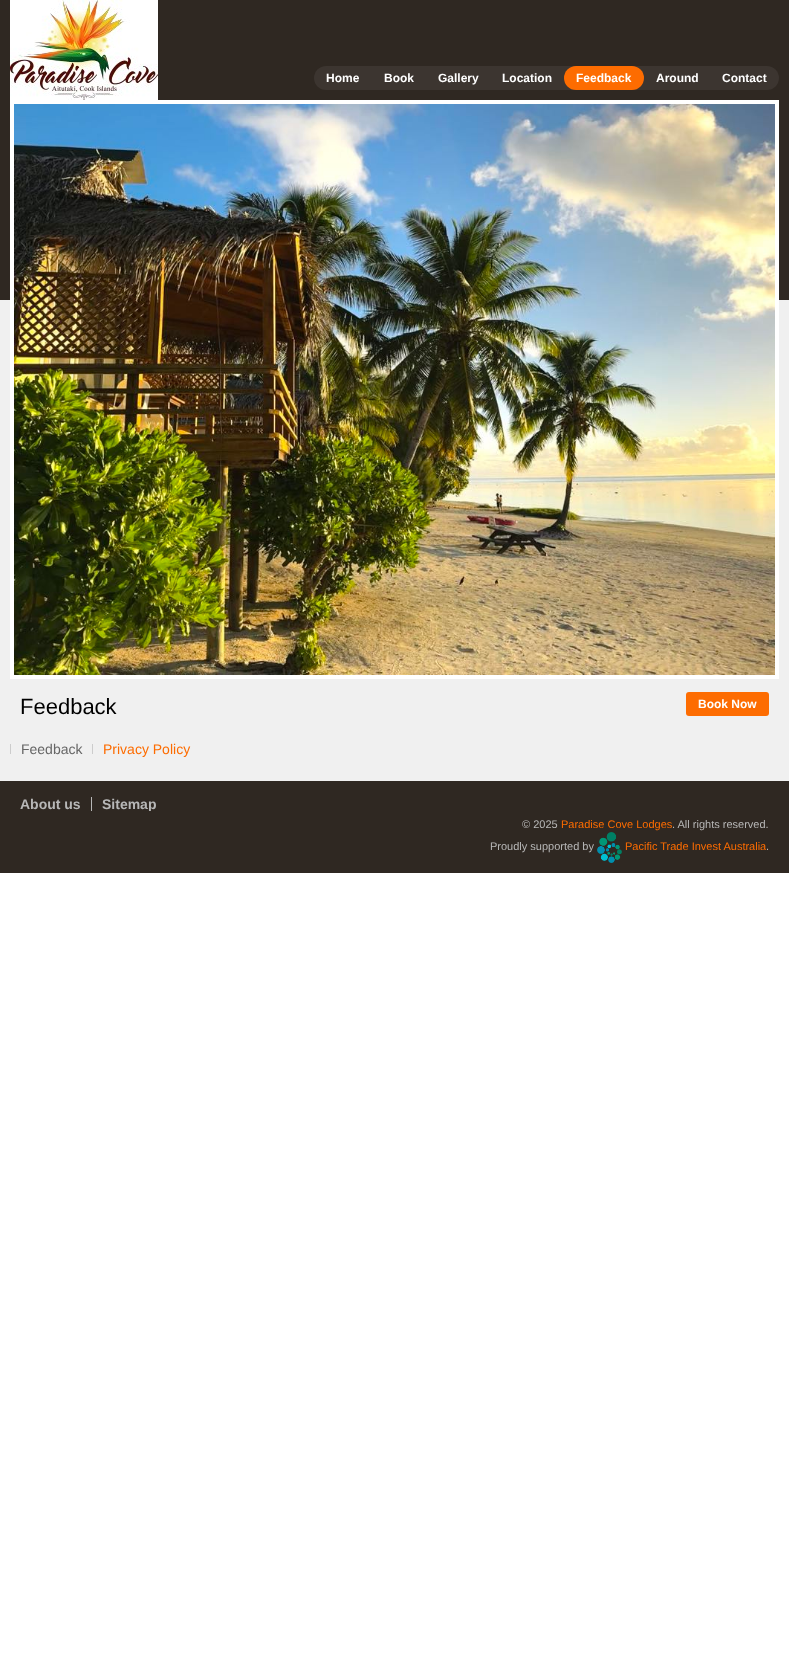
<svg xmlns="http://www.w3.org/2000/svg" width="789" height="1655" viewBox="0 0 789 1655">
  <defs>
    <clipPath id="clip1"><rect x="20" y="797" width="146" height="14"/></clipPath>
  </defs>
  <rect width="100%" height="100%" fill="#ffffff"/>
  <rect x="0" y="0" width="789" height="300" fill="#2f2822"/>
  <image x="10" y="0" width="148" height="100" href="img1.png"/>
  <rect x="314" y="66" width="465" height="24" rx="12" fill="#3c3530"/>
  <text x="326" y="82" font-family="Liberation Sans" font-size="12" font-weight="bold" fill="#ffffff">Home</text>
  <text x="384" y="82" font-family="Liberation Sans" font-size="12" font-weight="bold" fill="#ffffff">Book</text>
  <text x="438" y="82" font-family="Liberation Sans" font-size="12" font-weight="bold" fill="#ffffff">Gallery</text>
  <text x="502" y="82" font-family="Liberation Sans" font-size="12" font-weight="bold" fill="#ffffff">Location</text>
  <rect x="564" y="66" width="80" height="24" rx="12" fill="#fd6c01"/>
  <text x="576" y="82" font-family="Liberation Sans" font-size="12" font-weight="bold" fill="#ffffff">Feedback</text>
  <text x="656" y="82" font-family="Liberation Sans" font-size="12" font-weight="bold" fill="#ffffff">Around</text>
  <text x="722" y="82" font-family="Liberation Sans" font-size="12" font-weight="bold" fill="#ffffff">Contact</text>
  <rect x="0" y="300" width="789" height="481" fill="#f0f0f0"/>
  <rect x="12" y="102" width="765" height="575" fill="none" stroke="#ffffff" stroke-width="4"/>
  <image x="14" y="104" width="761" height="571" href="img2.png"/>
  <text x="20" y="714" font-family="Liberation Sans" font-size="22" fill="#000000">Feedback</text>
  <rect x="686" y="692" width="83" height="24" rx="3" fill="#fd6c01"/>
  <text x="698" y="708" font-family="Liberation Sans" font-size="12" font-weight="bold" fill="#ffffff">Book Now</text>
  <rect x="10" y="744" width="1" height="10" fill="#cccccc"/>
  <text x="21" y="754" font-family="Liberation Sans" font-size="14" fill="#666666">Feedback</text>
  <rect x="92" y="744" width="1" height="10" fill="#cccccc"/>
  <text x="103" y="754" font-family="Liberation Sans" font-size="14" fill="#fd6c01">Privacy Policy</text>
  <rect x="0" y="781" width="789" height="92" fill="#2f2822"/>
  <text x="20" y="809" font-family="Liberation Sans" font-size="14" font-weight="bold" fill="#b7b7b7">About us</text>
  <rect x="91" y="797" width="1" height="14" fill="#b7b7b7"/>
  <g clip-path="url(#clip1)">
    <text x="102" y="809" font-family="Liberation Sans" font-size="14" font-weight="bold" fill="#b7b7b7">Sitemap</text>
  </g>
  <text x="522" y="828" font-family="Liberation Sans" font-size="11" fill="#b7b7b7">© 2025</text>
  <text x="561" y="828" font-family="Liberation Sans" font-size="11" fill="#fd6c01">Paradise Cove Lodges</text>
  <text x="672" y="828" font-family="Liberation Sans" font-size="11" fill="#b7b7b7">. All rights reserved.</text>
  <text x="490" y="850" font-family="Liberation Sans" font-size="11" fill="#b7b7b7">Proudly supported by</text>
  <image x="597" y="832" width="25" height="31" href="img3.png"/>
  <text x="625" y="850" font-family="Liberation Sans" font-size="11" fill="#fd6c01">Pacific Trade Invest Australia</text>
  <text x="766" y="850" font-family="Liberation Sans" font-size="11" fill="#b7b7b7">.</text>
</svg>
